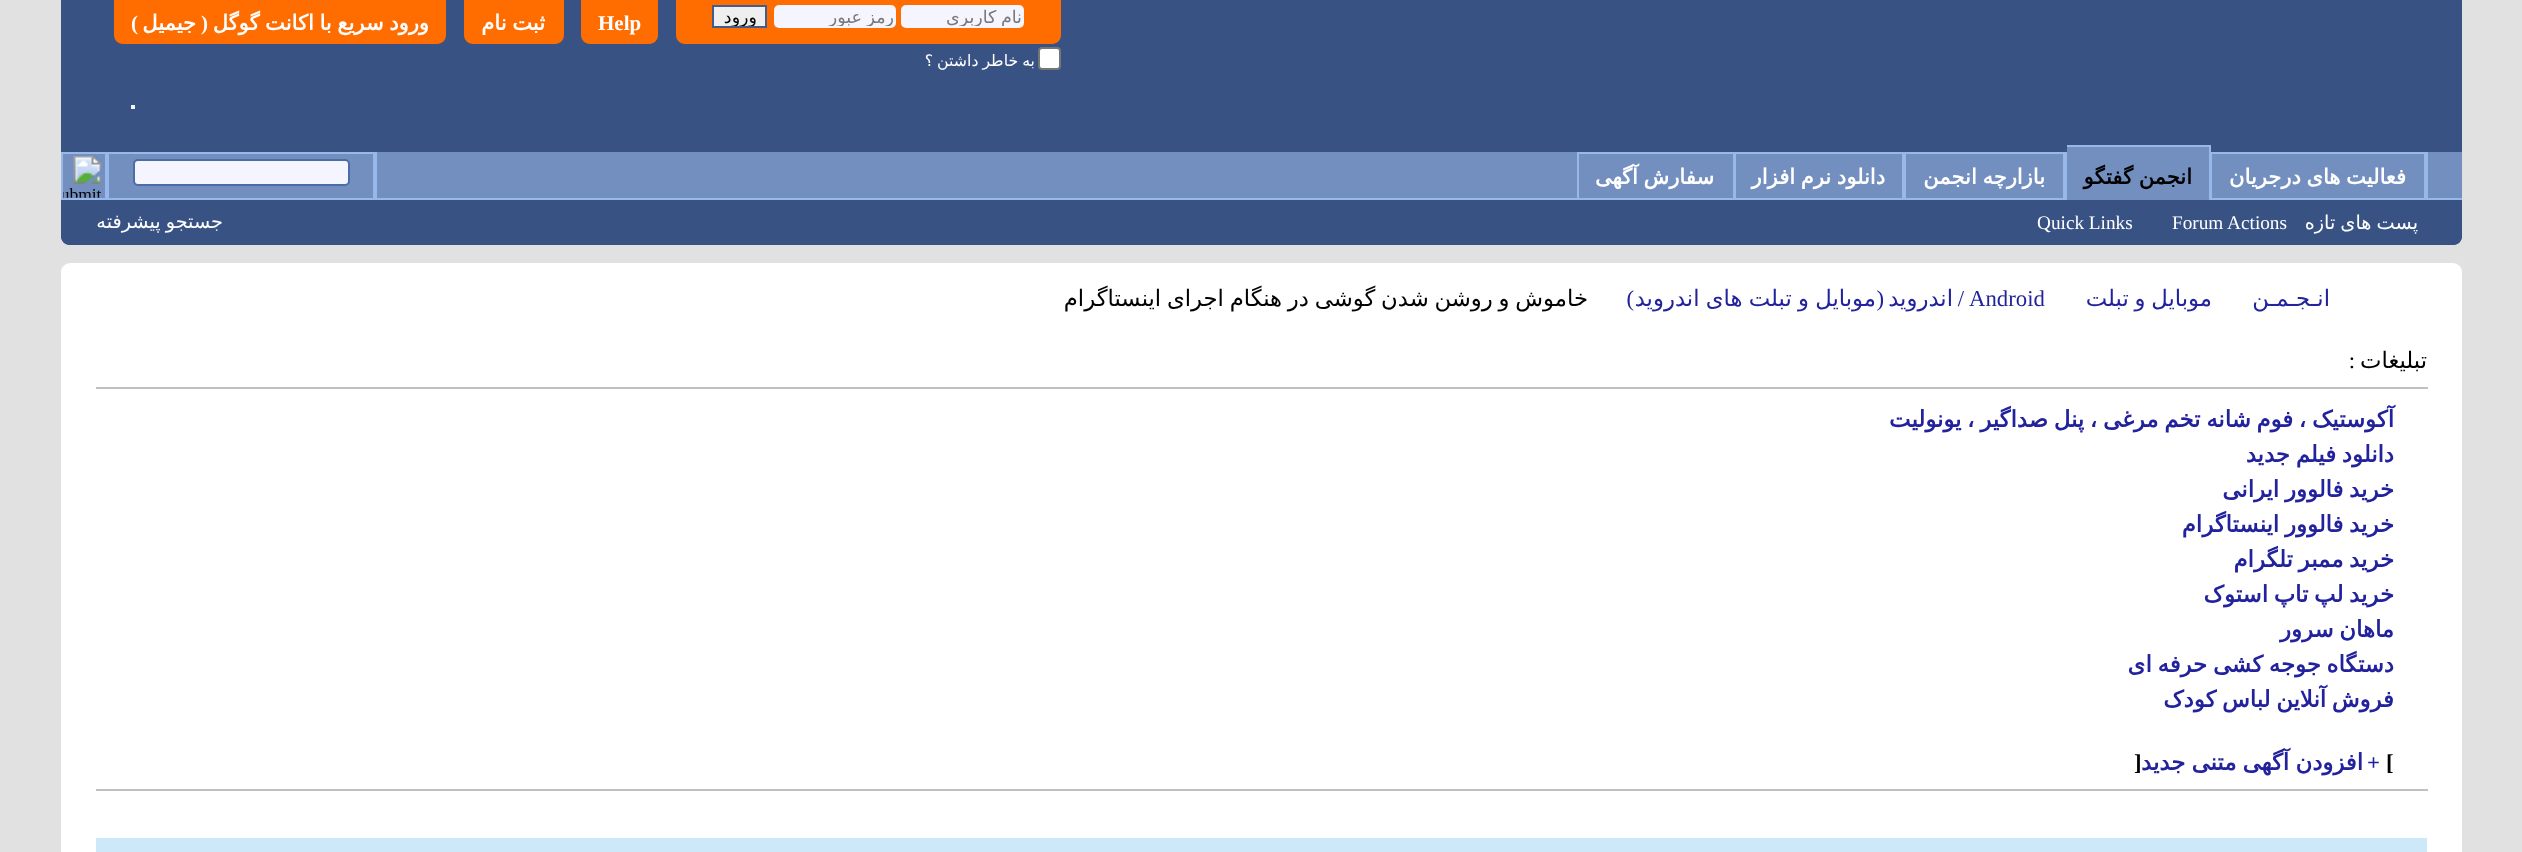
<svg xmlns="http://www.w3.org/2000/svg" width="2522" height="852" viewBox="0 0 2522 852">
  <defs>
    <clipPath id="clip1"><rect x="903" y="7" width="119" height="19"/></clipPath>
    <clipPath id="clip2"><rect x="775" y="7" width="119" height="19"/></clipPath>
    <clipPath id="clip3"><rect x="714" y="7" width="51" height="19"/></clipPath>
  </defs>
  <rect width="100%" height="100%" fill="#e1e1e2"/>
  <path d="M61 0H2462V236C2462 241 2458 245 2453 245H70C65 245 61 241 61 236Z" fill="#385283"/>
  <path d="M676 0H1061V35C1061 40 1057 44 1052 44H685C680 44 676 40 676 35Z" fill="#ff6c00"/>
  <rect x="901" y="5" width="123" height="23" rx="5" fill="#f5f5ff"/>
  <g clip-path="url(#clip1)">
    <text x="1022" y="23" word-spacing="-1" font-family="DejaVu Sans" font-size="17.5" direction="rtl" fill="#777777">نام کاربری</text>
  </g>
  <rect x="774" y="5" width="122" height="23" rx="5" fill="#f5f5ff"/>
  <g clip-path="url(#clip2)">
    <text x="894" y="23" word-spacing="-1" font-family="DejaVu Sans" font-size="17.5" direction="rtl" fill="#777777">رمز عبور</text>
  </g>
  <rect x="713" y="6" width="53" height="21" fill="#efefef" stroke="#415d8d" stroke-width="2"/>
  <g clip-path="url(#clip3)">
    <text x="757" y="23" font-family="DejaVu Sans" font-size="17.5" direction="rtl" fill="#000000">ورود</text>
  </g>
  <rect x="1039" y="48" width="21" height="21" rx="3" fill="#ffffff" stroke="#767676" stroke-width="2"/>
  <text x="1035" y="66" word-spacing="-1" font-family="DejaVu Sans" font-size="15.75" direction="rtl" fill="#ffffff">به خاطر داشتن ؟</text>
  <path d="M581 0H658V35C658 40 654 44 649 44H590C585 44 581 40 581 35Z" fill="#ff6c00"/>
  <text x="598" y="30" font-family="Liberation Serif" font-size="21" font-weight="bold" fill="#ffffff">Help</text>
  <path d="M464 0H564V35C564 40 560 44 555 44H473C468 44 464 40 464 35Z" fill="#ff6c00"/>
  <text x="545" y="30" word-spacing="-1" font-family="DejaVu Sans" font-size="21" font-weight="bold" direction="rtl" fill="#ffffff">ثبت نام</text>
  <path d="M114 0H446V35C446 40 442 44 437 44H123C118 44 114 40 114 35Z" fill="#ff6c00"/>
  <text x="429" y="30" word-spacing="-1" font-family="DejaVu Sans" font-size="21" font-weight="bold" direction="rtl" fill="#ffffff">ورود سریع با اکانت گوگل</text>
  <text x="208" y="30" font-family="Liberation Serif" font-size="21" font-weight="bold" direction="rtl" fill="#ffffff">(</text>
  <text x="196" y="30" font-family="DejaVu Sans" font-size="21" font-weight="bold" direction="rtl" fill="#ffffff">جیمیل</text>
  <text x="138" y="30" font-family="Liberation Serif" font-size="21" font-weight="bold" direction="rtl" fill="#ffffff">)</text>
  <rect x="131" y="105" width="4" height="4" fill="#f5f5ff"/>
  <path d="M61 152H2462V236C2462 241 2458 245 2453 245H70C65 245 61 241 61 236Z" fill="#385283"/>
  <rect x="63" y="152" width="2399" height="46" fill="#738fbf"/>
  <rect x="2426" y="152" width="2" height="48" fill="#98b7eb"/>
  <rect x="2211" y="152" width="1" height="48" fill="#98b7eb"/>
  <rect x="2212" y="152" width="214" height="2" fill="#98b7eb"/>
  <rect x="2424" y="152" width="2" height="48" fill="#98b7eb"/>
  <text x="2406" y="184" word-spacing="-1" font-family="DejaVu Sans" font-size="21" font-weight="bold" direction="rtl" fill="#ffffff">فعالیت های درجریان</text>
  <rect x="2065" y="152" width="2" height="46" fill="#98b7eb"/>
  <rect x="1904" y="152" width="2" height="48" fill="#98b7eb"/>
  <rect x="1906" y="152" width="159" height="2" fill="#98b7eb"/>
  <rect x="2063" y="152" width="2" height="48" fill="#98b7eb"/>
  <rect x="1735" y="152" width="1" height="48" fill="#98b7eb"/>
  <rect x="1736" y="152" width="168" height="2" fill="#98b7eb"/>
  <rect x="1902" y="152" width="2" height="48" fill="#98b7eb"/>
  <rect x="1577" y="152" width="2" height="48" fill="#98b7eb"/>
  <rect x="1579" y="152" width="155" height="2" fill="#98b7eb"/>
  <rect x="1733" y="152" width="2" height="48" fill="#98b7eb"/>
  <rect x="61" y="198" width="2401" height="2" fill="#98b7eb"/>
  <rect x="2067" y="147" width="142" height="53" fill="#738fbf"/>
  <rect x="2067" y="145" width="143" height="2" fill="#98b7eb"/>
  <rect x="2209" y="145" width="2" height="55" fill="#98b7eb"/>
  <text x="2192" y="184" word-spacing="-1" font-family="DejaVu Sans" font-size="21" font-weight="bold" direction="rtl" fill="#000000">انجمن گفتگو</text>
  <text x="2045" y="184" word-spacing="-1" font-family="DejaVu Sans" font-size="21" font-weight="bold" direction="rtl" fill="#ffffff">بازارچه انجمن</text>
  <text x="1885" y="184" word-spacing="-1" font-family="DejaVu Sans" font-size="21" font-weight="bold" direction="rtl" fill="#ffffff">دانلود نرم افزار</text>
  <text x="1714" y="184" word-spacing="-1" font-family="DejaVu Sans" font-size="21" font-weight="bold" direction="rtl" fill="#ffffff">سفارش آگهی</text>
  <text x="2418" y="229" word-spacing="-1" font-family="DejaVu Sans" font-size="19.25" direction="rtl" fill="#ffffff">پست های تازه</text>
  <text x="2172" y="229" font-family="Liberation Serif" font-size="19.25" fill="#ffffff">Forum Actions</text>
  <text x="2037" y="229" font-family="Liberation Serif" font-size="19.25" fill="#ffffff">Quick Links</text>
  <rect x="375" y="152" width="2" height="46" fill="#98b7eb"/>
  <rect x="109" y="152" width="266" height="2" fill="#98b7eb"/>
  <rect x="373" y="152" width="2" height="46" fill="#98b7eb"/>
  <rect x="134" y="160" width="215" height="25" rx="4" fill="#f5f5ff" stroke="#4b6da6" stroke-width="2"/>
  <rect x="107" y="152" width="2" height="46" fill="#98b7eb"/>
  <rect x="61" y="152" width="2" height="46" fill="#98b7eb"/>
  <rect x="63" y="152" width="44" height="2" fill="#98b7eb"/>
  <rect x="105" y="152" width="2" height="46" fill="#98b7eb"/>
  <image x="63" y="156" width="39" height="42" href="img1.png"/>
  <text x="223" y="228" word-spacing="-1" font-family="DejaVu Sans" font-size="19.25" direction="rtl" fill="#ffffff">جستجو پيشرفته</text>
  <rect x="61" y="263" width="2401" height="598" rx="9" fill="#ffffff"/>
  <text x="2330" y="306" font-family="DejaVu Sans" font-size="22.75" direction="rtl" fill="#22229c">انـجـمـن</text>
  <text x="2212" y="306" word-spacing="-1.5" font-family="DejaVu Sans" font-size="22.75" direction="rtl" fill="#22229c">موبایل و تبلت</text>
  <text x="1969" y="306" font-family="Liberation Serif" font-size="22.75" fill="#22229c">Android</text>
  <text x="1964" y="306" font-family="Liberation Serif" font-size="22.75" direction="rtl" fill="#22229c">/</text>
  <text x="1953" y="306" font-family="DejaVu Sans" font-size="22.75" direction="rtl" fill="#22229c">اندروید</text>
  <text x="1884" y="306" font-family="Liberation Serif" font-size="22.75" direction="rtl" fill="#22229c">(</text>
  <text x="1876" y="306" word-spacing="-1" font-family="DejaVu Sans" font-size="22.75" direction="rtl" fill="#22229c">موبایل و تبلت های اندروید</text>
  <text x="1634" y="306" font-family="Liberation Serif" font-size="22.75" direction="rtl" fill="#22229c">)</text>
  <text x="1588" y="306" word-spacing="-1.5" font-family="DejaVu Sans" font-size="22.75" direction="rtl" fill="#000000">خاموش و روشن شدن گوشی در هنگام اجرای اینستاگرام</text>
  <text x="2427" y="368" font-family="DejaVu Sans" font-size="22.75" direction="rtl" fill="#000000">تبلیغات</text>
  <text x="2355" y="368" font-family="Liberation Serif" font-size="22.75" direction="rtl" fill="#000000">:</text>
  <rect x="96" y="387" width="2332" height="2" fill="#c0c0c0"/>
  <text x="2394" y="427" word-spacing="-1.5" font-family="DejaVu Sans" font-size="22.75" font-weight="bold" direction="rtl" fill="#22229c">آکوستیک ، فوم شانه تخم مرغی ، پنل صداگیر ، یونولیت</text>
  <text x="2394" y="462" word-spacing="-1.5" font-family="DejaVu Sans" font-size="22.75" font-weight="bold" direction="rtl" fill="#22229c">دانلود فیلم جدید</text>
  <text x="2394" y="497" word-spacing="-1.5" font-family="DejaVu Sans" font-size="22.75" font-weight="bold" direction="rtl" fill="#22229c">خرید فالوور ایرانی</text>
  <text x="2394" y="532" word-spacing="-1.5" font-family="DejaVu Sans" font-size="22.75" font-weight="bold" direction="rtl" fill="#22229c">خرید فالوور اینستاگرام</text>
  <text x="2394" y="567" word-spacing="-1.5" font-family="DejaVu Sans" font-size="22.75" font-weight="bold" direction="rtl" fill="#22229c">خرید ممبر تلگرام</text>
  <text x="2394" y="602" word-spacing="-1.5" font-family="DejaVu Sans" font-size="22.75" font-weight="bold" direction="rtl" fill="#22229c">خرید لپ تاپ استوک</text>
  <text x="2394" y="637" word-spacing="-1.5" font-family="DejaVu Sans" font-size="22.75" font-weight="bold" direction="rtl" fill="#22229c">ماهان سرور</text>
  <text x="2394" y="672" word-spacing="-1.5" font-family="DejaVu Sans" font-size="22.75" font-weight="bold" direction="rtl" fill="#22229c">دستگاه جوجه کشی حرفه ای</text>
  <text x="2394" y="707" word-spacing="-1.5" font-family="DejaVu Sans" font-size="22.75" font-weight="bold" direction="rtl" fill="#22229c">فروش آنلاین لباس کودک</text>
  <text x="2386" y="770" font-family="Liberation Serif" font-size="22.75" font-weight="bold" fill="#000000">[</text>
  <text x="2380" y="770" font-family="Liberation Serif" font-size="22.75" font-weight="bold" direction="rtl" fill="#22229c">+</text>
  <text x="2363" y="770" word-spacing="-1" font-family="DejaVu Sans" font-size="22.75" font-weight="bold" direction="rtl" fill="#22229c">افزودن آگهی متنی جدید</text>
  <text x="2134" y="770" font-family="Liberation Serif" font-size="22.75" font-weight="bold" fill="#000000">]</text>
  <rect x="96" y="789" width="2332" height="2" fill="#c0c0c0"/>
  <rect x="96" y="838" width="2331" height="14" fill="#cde9f9"/>
</svg>
